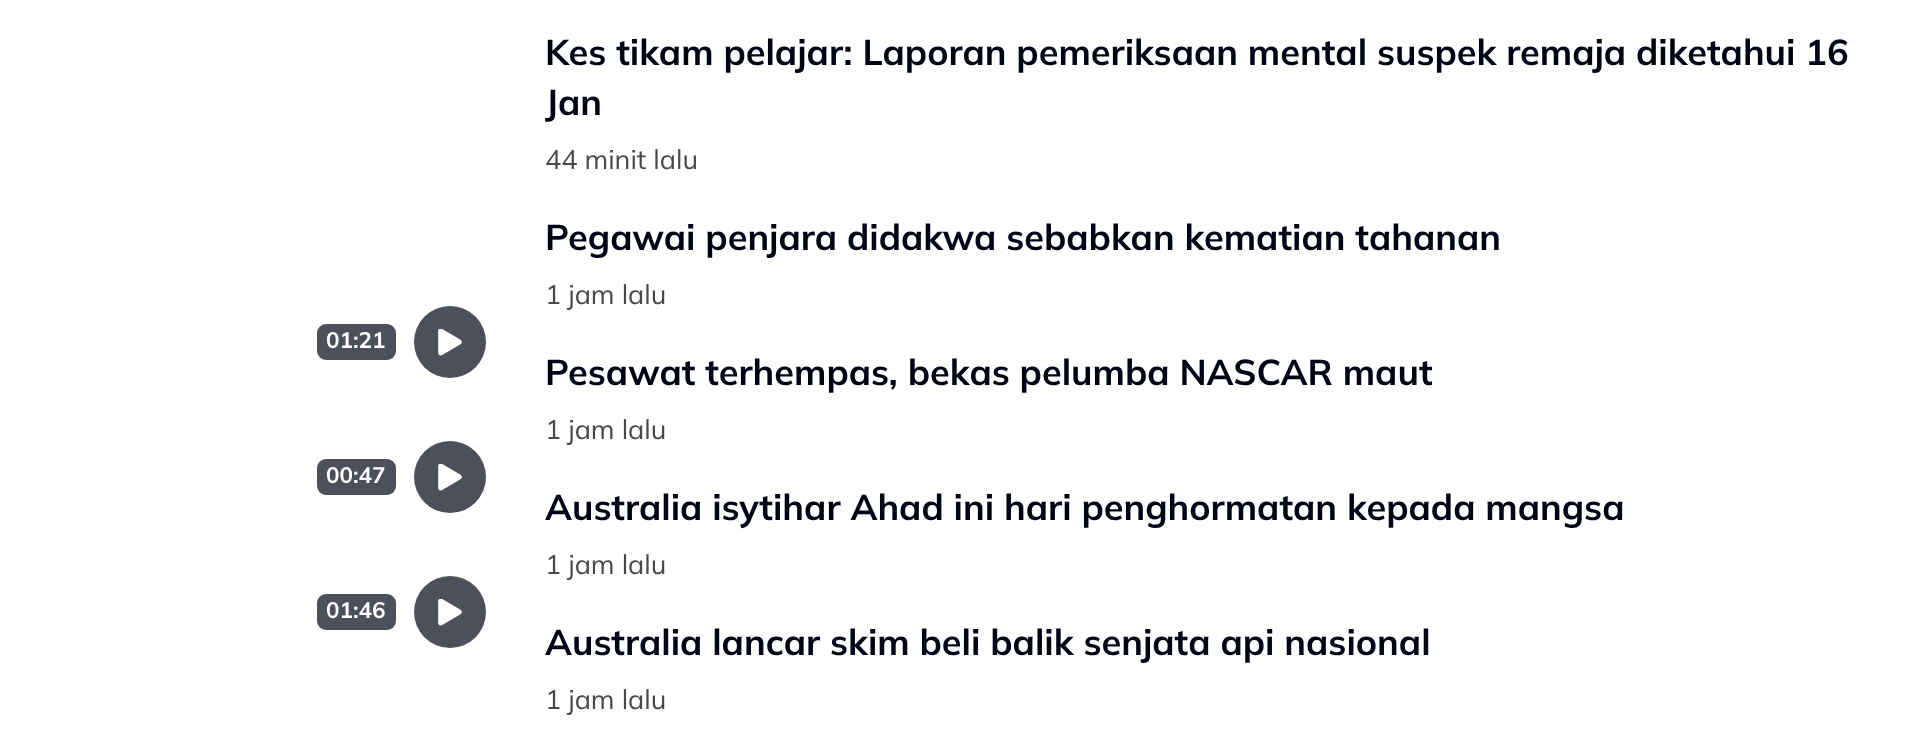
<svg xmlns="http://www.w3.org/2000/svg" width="1913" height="732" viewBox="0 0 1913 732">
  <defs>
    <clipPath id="clip1"><rect x="545" y="27" width="1334" height="99"/></clipPath>
  </defs>
  <rect width="100%" height="100%" fill="#ffffff"/>
  <text x="545" y="65" font-family="Mulish" font-size="36" font-weight="bold" fill="#010414">Kes tikam pelajar: Laporan pemeriksaan mental suspek remaja diketahui 16</text>
  <g clip-path="url(#clip1)">
    <text x="545" y="115" font-family="Mulish" font-size="36" font-weight="bold" fill="#010414">Jan</text>
  </g>
  <text x="545" y="169" font-family="Mulish" font-size="27" fill="#484849">44 minit lalu</text>
  <text x="545" y="250" font-family="Mulish" font-size="36" font-weight="bold" fill="#010414">Pegawai penjara didakwa sebabkan kematian tahanan</text>
  <text x="545" y="304" font-family="Mulish" font-size="27" fill="#484849">1 jam lalu</text>
  <rect x="317" y="324" width="79" height="36" rx="9" fill="#4d4f5b"/>
  <text x="326" y="348" font-family="Mulish" font-size="22.5" font-weight="bold" fill="#ffffff">01:21</text>
  <circle cx="450" cy="342" r="36" fill="#4d4f5b"/>
  <image x="438" y="329" width="24" height="27" href="img1.png"/>
  <text x="545" y="385" font-family="Mulish" font-size="36" font-weight="bold" fill="#010414">Pesawat terhempas, bekas pelumba NASCAR maut</text>
  <text x="545" y="439" font-family="Mulish" font-size="27" fill="#484849">1 jam lalu</text>
  <rect x="317" y="459" width="79" height="36" rx="9" fill="#4d4f5b"/>
  <text x="326" y="483" font-family="Mulish" font-size="22.5" font-weight="bold" fill="#ffffff">00:47</text>
  <circle cx="450" cy="477" r="36" fill="#4d4f5b"/>
  <image x="438" y="464" width="24" height="27" href="img1.png"/>
  <text x="545" y="520" font-family="Mulish" font-size="36" font-weight="bold" fill="#010414">Australia isytihar Ahad ini hari penghormatan kepada mangsa</text>
  <text x="545" y="574" font-family="Mulish" font-size="27" fill="#484849">1 jam lalu</text>
  <rect x="317" y="594" width="79" height="36" rx="9" fill="#4d4f5b"/>
  <text x="326" y="618" font-family="Mulish" font-size="22.5" font-weight="bold" fill="#ffffff">01:46</text>
  <circle cx="450" cy="612" r="36" fill="#4d4f5b"/>
  <image x="438" y="599" width="24" height="27" href="img1.png"/>
  <text x="545" y="655" font-family="Mulish" font-size="36" font-weight="bold" fill="#010414">Australia lancar skim beli balik senjata api nasional</text>
  <text x="545" y="709" font-family="Mulish" font-size="27" fill="#484849">1 jam lalu</text>
</svg>
